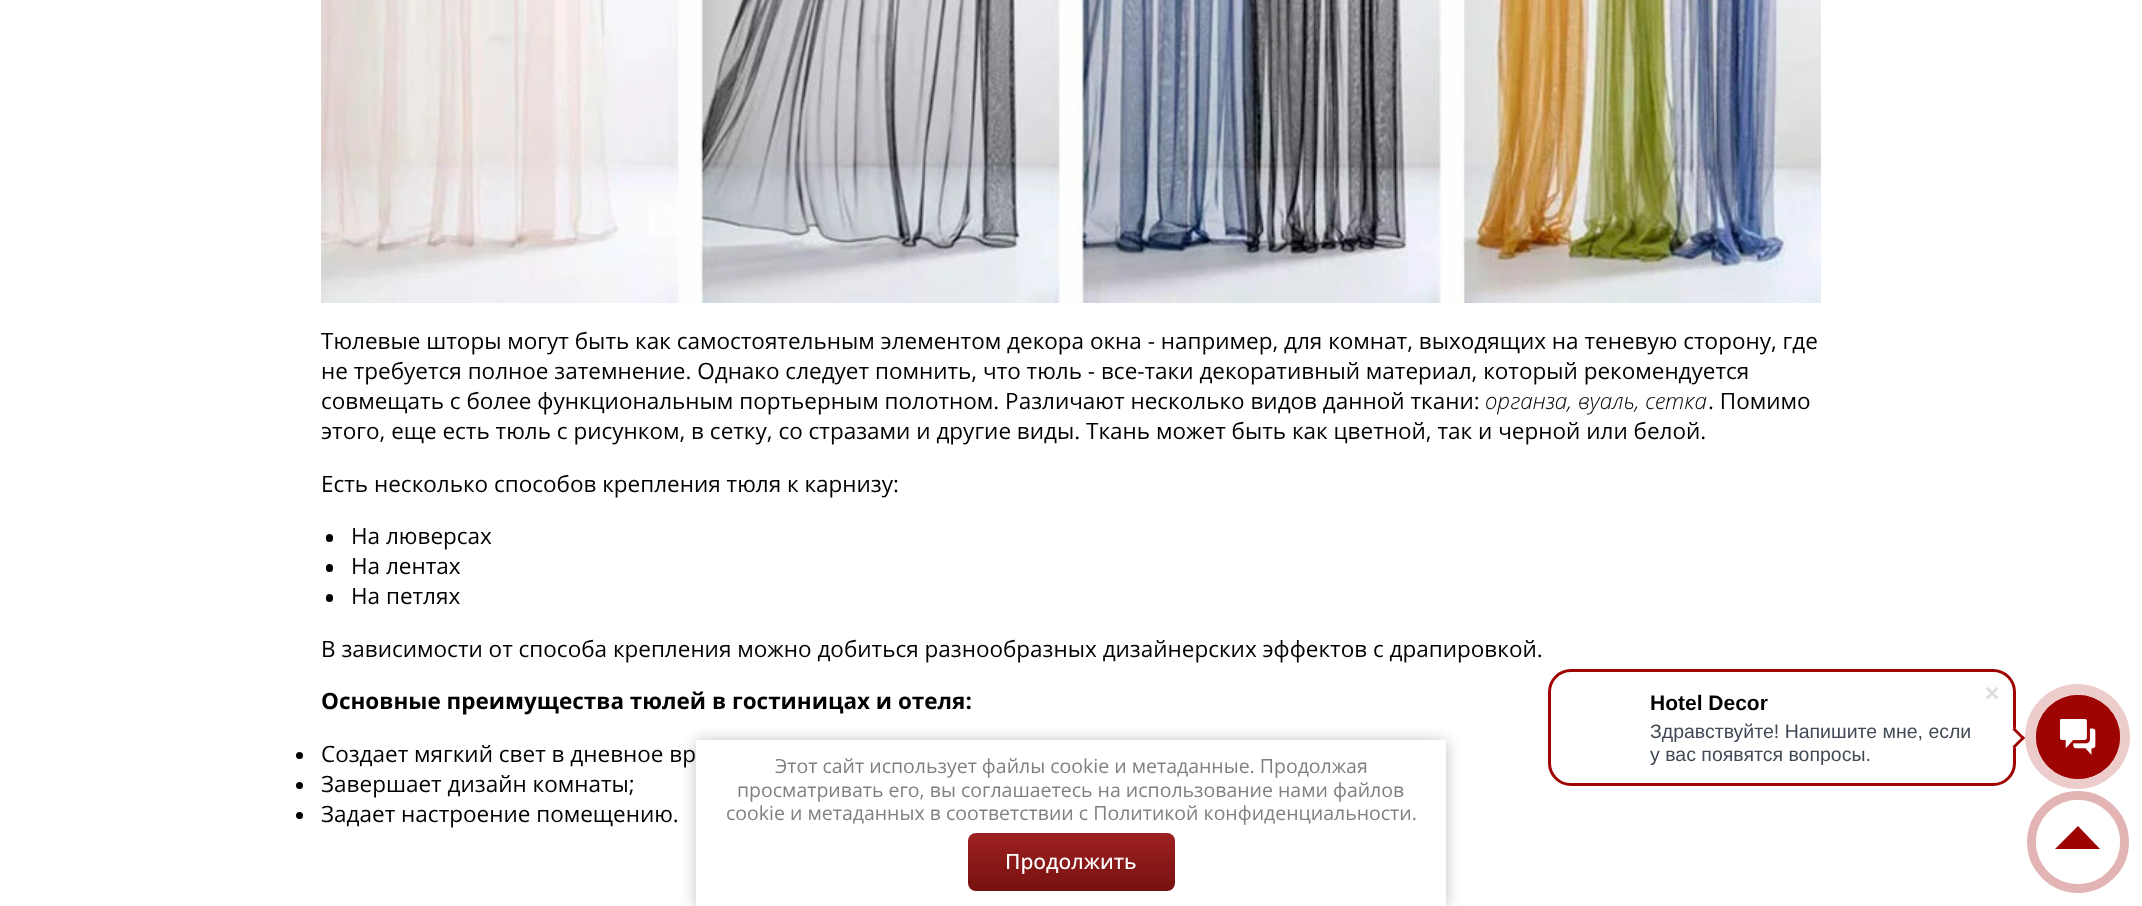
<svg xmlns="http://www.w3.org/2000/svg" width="2142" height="906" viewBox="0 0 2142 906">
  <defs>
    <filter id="blur1" x="-50%" y="-200%" width="200%" height="500%"><feGaussianBlur stdDeviation="7.5"/></filter>
    <linearGradient id="g1" gradientUnits="userSpaceOnUse" x1="1071" y1="833" x2="1071" y2="891"><stop offset="0" stop-color="#9f2020"/><stop offset="1" stop-color="#761111"/></linearGradient>
  </defs>
  <rect width="100%" height="100%" fill="#ffffff"/>
  <image x="321" y="0" width="1500" height="303" href="img1.png"/>
  <text x="321" y="349" font-family="Open Sans" font-size="22.5" fill="#000000">Тюлевые шторы могут быть как самостоятельным элементом декора окна - например, для комнат, выходящих на теневую сторону, где</text>
  <text x="321" y="379" font-family="Open Sans" font-size="22.5" fill="#000000">не требуется полное затемнение. Однако следует помнить, что тюль - все-таки декоративный материал, который рекомендуется</text>
  <text x="321" y="409" font-family="Open Sans" font-size="22.5" fill="#000000">совмещать с более функциональным портьерным полотном. Различают несколько видов данной ткани:</text>
  <text x="1485" y="409" font-family="Open Sans" font-size="22.5" font-weight="300" font-style="italic" fill="#000000">органза, вуаль, сетка</text>
  <text x="1708" y="409" font-family="Open Sans" font-size="22.5" fill="#000000">. Помимо</text>
  <text x="321" y="439" font-family="Open Sans" font-size="22.5" fill="#000000">этого, еще есть тюль с рисунком, в сетку, со стразами и другие виды. Ткань может быть как цветной, так и черной или белой.</text>
  <text x="321" y="492" font-family="Open Sans" font-size="22.5" fill="#000000">Есть несколько способов крепления тюля к карнизу:</text>
  <rect x="326" y="534" width="7" height="8" rx="3.5" fill="#000000"/>
  <text x="351" y="544" font-family="Open Sans" font-size="22.5" fill="#000000">На люверсах</text>
  <rect x="326" y="564" width="7" height="8" rx="3.5" fill="#000000"/>
  <text x="351" y="574" font-family="Open Sans" font-size="22.5" fill="#000000">На лентах</text>
  <rect x="326" y="594" width="7" height="8" rx="3.5" fill="#000000"/>
  <text x="351" y="604" font-family="Open Sans" font-size="22.5" fill="#000000">На петлях</text>
  <text x="321" y="657" font-family="Open Sans" font-size="22.5" fill="#000000">В зависимости от способа крепления можно добиться разнообразных дизайнерских эффектов с драпировкой.</text>
  <text x="321" y="709" font-family="Open Sans" font-size="22.5" font-weight="bold" fill="#000000">Основные преимущества тюлей в гостиницах и отеля:</text>
  <circle cx="299.5" cy="755.5" r="3.5" fill="#000000"/>
  <text x="321" y="762" font-family="Open Sans" font-size="22.5" fill="#000000">Создает мягкий свет в дневное вр</text>
  <circle cx="299.5" cy="785.5" r="3.5" fill="#000000"/>
  <text x="321" y="792" font-family="Open Sans" font-size="22.5" fill="#000000">Завершает дизайн комнаты;</text>
  <circle cx="299.5" cy="815.5" r="3.5" fill="#000000"/>
  <text x="321" y="822" font-family="Open Sans" font-size="22.5" fill="#000000">Задает настроение помещению.</text>
  <rect x="1549.5" y="670.5" width="465" height="114" rx="21.5" fill="none" stroke="#9e0502" stroke-width="3"/>
  <text x="1650" y="710" font-family="Liberation Sans" font-size="21" font-weight="bold" fill="#000000">Hotel Decor</text>
  <text x="1650" y="738" font-family="Liberation Sans" font-size="19.5" fill="#424956">Здравствуйте! Напишите мне, если</text>
  <text x="1650" y="761" font-family="Liberation Sans" font-size="19.5" fill="#424956">у вас появятся вопросы.</text>
  <image x="1986" y="687" width="13" height="13" href="img2.png"/>
  <path d="M2004 738L2014.5 727.5L2025 738L2014.5 748.5Z" fill="#ffffff"/>
  <path d="M2012.5 729.5L2014.5 727.5L2025 738L2023 740Z" fill="#9e0502"/>
  <path d="M2012.5 746.5L2023 736L2025 738L2014.5 748.5Z" fill="#9e0502"/>
  <circle cx="2077.5" cy="736.5" r="52.5" fill="#eccdcc"/>
  <circle cx="2078" cy="737" r="41.5" fill="none" stroke="#9e0502"/>
  <circle cx="2078" cy="737" r="42" fill="#9e0502"/>
  <image x="2060" y="719" width="36" height="36" href="img3.png"/>
  <rect x="696" y="741" width="750" height="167" fill="#000000" fill-opacity="0.25" filter="url(#blur1)"/>
  <rect x="696" y="740" width="750" height="166" fill="#ffffff"/>
  <text x="775" y="773" font-family="Open Sans" font-size="19.5" fill="#808080">Этот сайт использует файлы cookie и метаданные. Продолжая</text>
  <text x="737" y="797" font-family="Open Sans" font-size="19.5" fill="#808080">просматривать его, вы соглашаетесь на использование нами файлов</text>
  <text x="726" y="820" font-family="Open Sans" font-size="19.5" fill="#808080">cookie и метаданных в соответствии с Политикой конфиденциальности.</text>
  <rect x="968" y="833" width="207" height="58" rx="8" fill="url(#g1)"/>
  <text x="1005" y="869" font-family="Open Sans" font-size="21" font-weight="500" fill="#ffffff">Продолжить</text>
  <circle cx="2078" cy="842" r="46.5" fill="none" stroke="#e2b4b3" stroke-width="9"/>
  <circle cx="2078" cy="842" r="42" fill="#ffffff"/>
  <path d="M2100 849H2055L2078 826Z" fill="#9e0502"/>
</svg>
